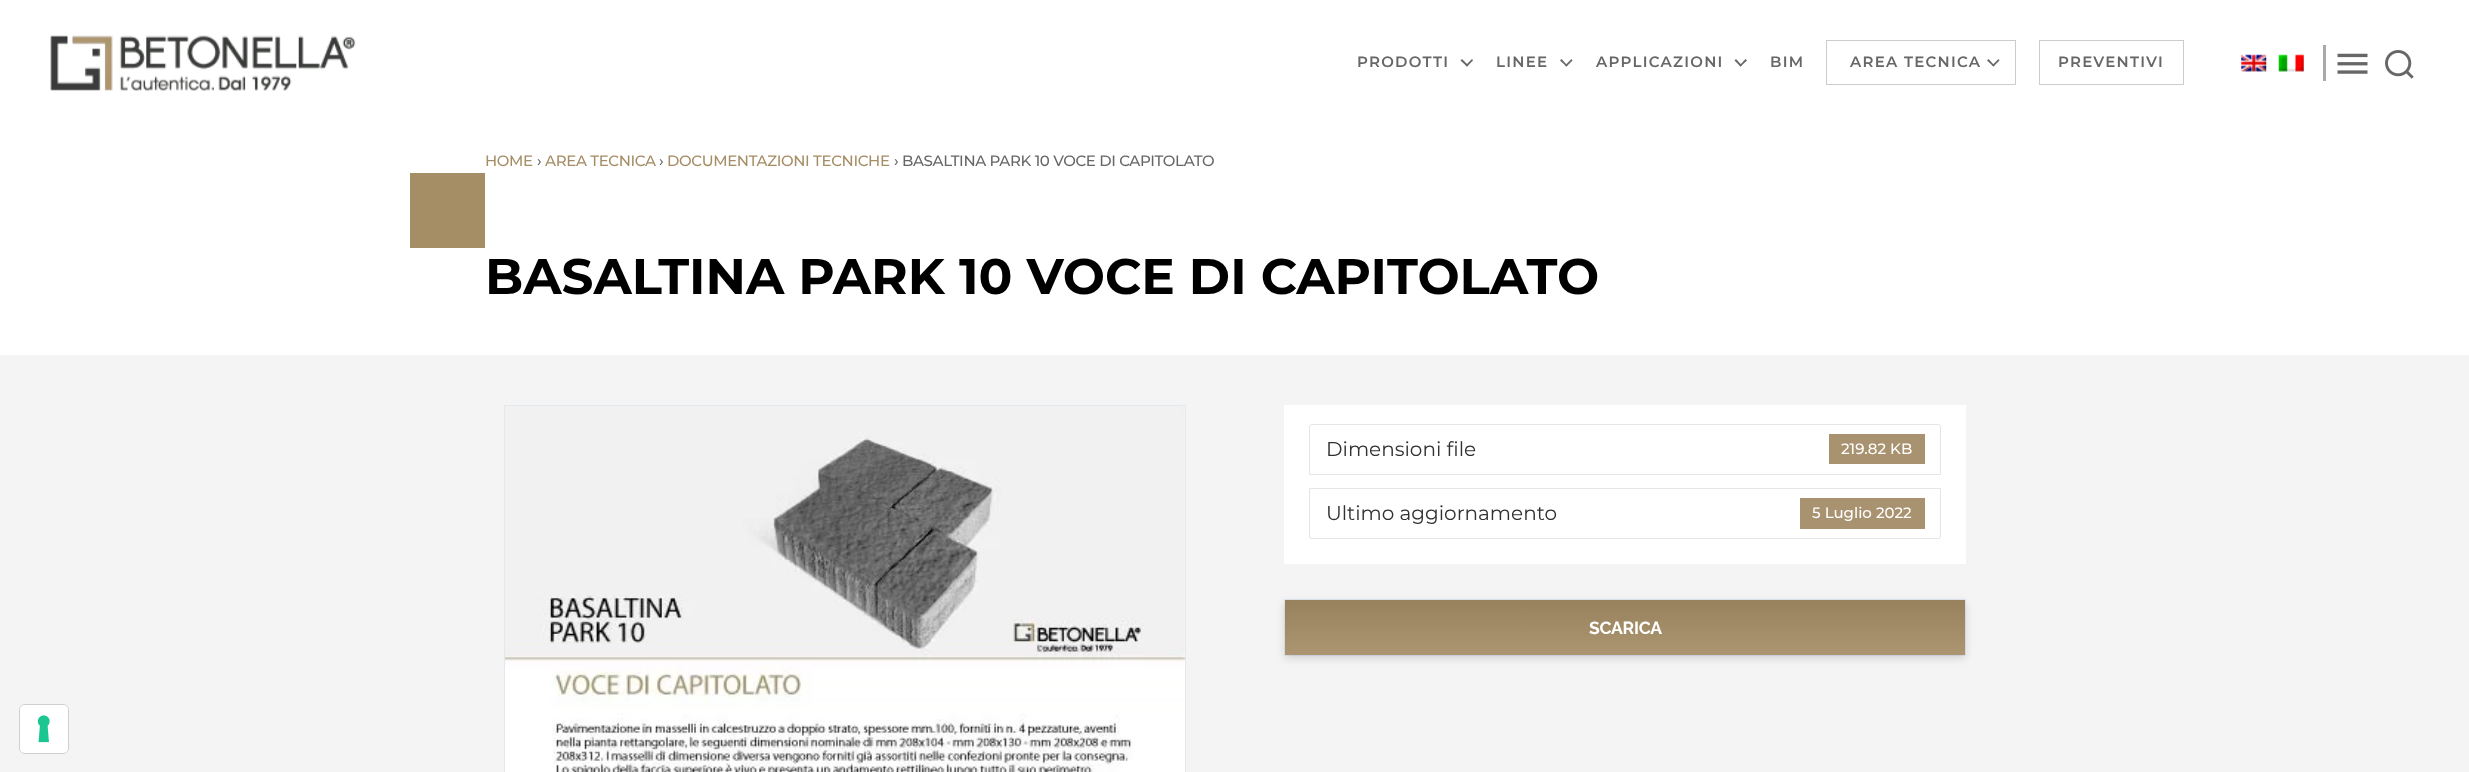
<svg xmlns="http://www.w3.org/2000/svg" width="2469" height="772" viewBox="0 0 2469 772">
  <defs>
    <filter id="blur1" x="-50%" y="-200%" width="200%" height="500%"><feGaussianBlur stdDeviation="4"/></filter>
    <linearGradient id="g1" gradientUnits="userSpaceOnUse" x1="1625" y1="600" x2="1625" y2="655"><stop offset="0" stop-color="#98825d"/><stop offset="1" stop-color="#ac9671"/></linearGradient>
  </defs>
  <rect width="100%" height="100%" fill="#ffffff"/>
  <image x="50" y="35" width="306" height="56" href="img1.png"/>
  <text x="1357" y="67" font-family="Montserrat" font-size="15" font-weight="600" letter-spacing="1.25" fill="#676767">PRODOTTI</text>
  <path d="M1460.5 60.5L1462 59L1468.5 65.5L1467 66.5Z" fill="#676767"/>
  <path d="M1465.5 65.5L1472 59L1473 60.5L1467 66.5Z" fill="#676767"/>
  <text x="1496" y="67" font-family="Montserrat" font-size="15" font-weight="600" letter-spacing="1.25" fill="#676767">LINEE</text>
  <path d="M1560 60.5L1561.5 59L1567.5 65.5L1566.5 66.5Z" fill="#676767"/>
  <path d="M1565 65.5L1571.5 59L1572.5 60.5L1566.5 66.5Z" fill="#676767"/>
  <text x="1596" y="67" font-family="Montserrat" font-size="15" font-weight="600" letter-spacing="1.25" fill="#676767">APPLICAZIONI</text>
  <path d="M1734.5 60.5L1736 59L1742 65.5L1740.5 66.5Z" fill="#676767"/>
  <path d="M1739.5 65.5L1745.5 59L1747 60.5L1740.5 66.5Z" fill="#676767"/>
  <text x="1770" y="67" font-family="Montserrat" font-size="15" font-weight="600" letter-spacing="1.25" fill="#676767">BIM</text>
  <rect x="1826.5" y="40.5" width="189" height="44" fill="none" stroke="#cccccc"/>
  <text x="1850" y="67" font-family="Montserrat" font-size="15" font-weight="600" letter-spacing="1.25" fill="#676767">AREA TECNICA</text>
  <path d="M1987 60.5L1988.5 59L1994.5 65.5L1993.5 66.5Z" fill="#676767"/>
  <path d="M1992 65.5L1998.5 59L1999.5 60.5L1993.5 66.5Z" fill="#676767"/>
  <rect x="2039.5" y="40.5" width="144" height="44" fill="none" stroke="#cccccc"/>
  <text x="2058" y="67" font-family="Montserrat" font-size="15" font-weight="600" letter-spacing="1.25" fill="#676767">PREVENTIVI</text>
  <rect x="2323" y="45" width="3" height="36" fill="#a9a9a9"/>
  <image x="2241" y="54" width="26" height="18" href="img2.png"/>
  <image x="2278" y="54" width="26" height="18" href="img3.png"/>
  <image x="2337" y="53" width="31" height="21" href="img4.png"/>
  <image x="2385" y="50" width="29" height="29" href="img5.png"/>
  <text x="485" y="166" font-family="Montserrat" font-size="15" font-weight="500" letter-spacing="-0.35" fill="#a58d65">HOME</text>
  <text x="537" y="166" font-family="Montserrat" font-size="15" font-weight="500" letter-spacing="-0.35" fill="#676767">›</text>
  <text x="545" y="166" font-family="Montserrat" font-size="15" font-weight="500" letter-spacing="-0.35" fill="#a58d65">AREA TECNICA</text>
  <text x="659" y="166" font-family="Montserrat" font-size="15" font-weight="500" letter-spacing="-0.35" fill="#676767">›</text>
  <text x="667" y="166" font-family="Montserrat" font-size="15" font-weight="500" letter-spacing="-0.35" fill="#a58d65">DOCUMENTAZIONI TECNICHE</text>
  <text x="894" y="166" font-family="Montserrat" font-size="15" font-weight="500" letter-spacing="-0.35" fill="#676767">› BASALTINA PARK 10 VOCE DI CAPITOLATO</text>
  <rect x="410" y="173" width="75" height="75" fill="#a58d65"/>
  <text x="485" y="294" font-family="Montserrat" font-size="50" font-weight="bold" fill="#000000">BASALTINA PARK 10 VOCE DI CAPITOLATO</text>
  <rect x="0" y="355" width="2469" height="417" fill="#f4f4f4"/>
  <rect x="504.5" y="405.5" width="681" height="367" fill="none" stroke="#e2e8f0"/>
  <image x="505" y="406" width="680" height="366" href="img6.png"/>
  <rect x="1284" y="405" width="682" height="159" fill="#ffffff"/>
  <path d="M1312 424.5H1938C1939.5 424.5 1940.5 425.5 1940.5 427V474.5H1309.5V427C1309.5 425.5 1310.5 424.5 1312 424.5Z" fill="none" stroke="#e5e5e5"/>
  <text x="1326" y="456" font-family="Montserrat" font-size="20" fill="#313131">Dimensioni file</text>
  <rect x="1829" y="434" width="96" height="30" fill="#a99270"/>
  <text x="1841" y="454" font-family="Montserrat" font-size="15" font-weight="500" fill="#ffffff">219.82 KB</text>
  <path d="M1309.5 488.5H1940.5V536C1940.5 537.5 1939.5 538.5 1938 538.5H1312C1310.5 538.5 1309.5 537.5 1309.5 536Z" fill="none" stroke="#e5e5e5"/>
  <text x="1326" y="520" font-family="Montserrat" font-size="20" fill="#313131">Ultimo aggiornamento</text>
  <rect x="1800" y="498" width="125" height="31" fill="#a99270"/>
  <text x="1812" y="518" font-family="Montserrat" font-size="15" font-weight="500" fill="#ffffff">5 Luglio 2022</text>
  <rect x="1284.5" y="599.5" width="681" height="56" fill="none" stroke="#e2e8f0"/>
  <rect x="1285" y="603" width="680" height="55" fill="#000000" fill-opacity="0.15" filter="url(#blur1)"/>
  <rect x="1285" y="600" width="680" height="55" fill="url(#g1)"/>
  <text x="1589" y="634" font-family="Raleway" font-size="17.5" font-weight="bold" letter-spacing="-0.25" fill="#ffffff">SCARICA</text>
  <rect x="19.5" y="704.5" width="49" height="49" rx="5.5" fill="none" stroke="#cfcfcf"/>
  <rect x="20" y="705" width="48" height="48" rx="5" fill="#ffffff"/>
  <image x="37" y="715" width="13" height="28" href="img7.png"/>
</svg>
